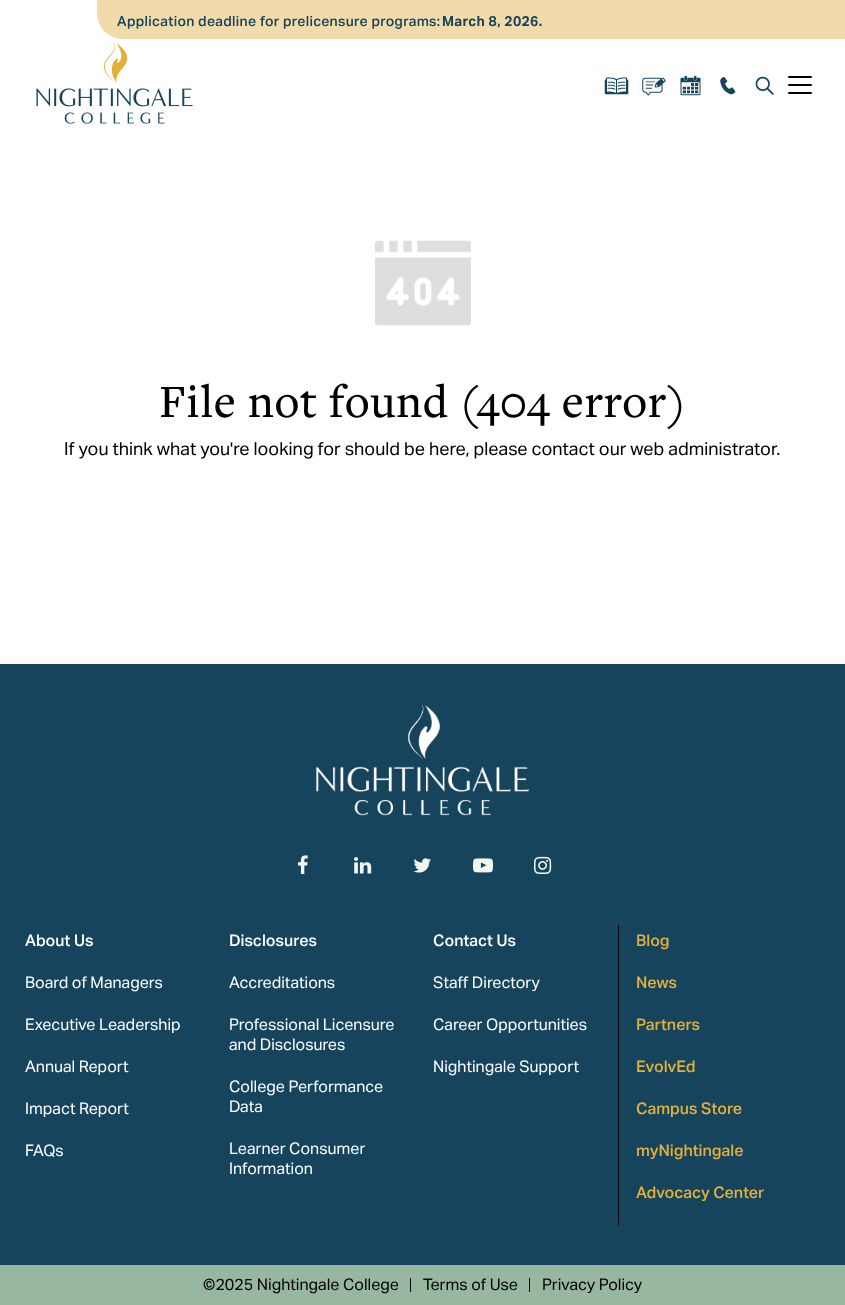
<svg xmlns="http://www.w3.org/2000/svg" width="845" height="1305" viewBox="0 0 845 1305">
  <rect width="100%" height="100%" fill="#ffffff"/>
  <path d="M97 0H830V39H123C108.5 39 97 27.5 97 13Z" fill="#f2dbab"/>
  <text x="117" y="26" font-family="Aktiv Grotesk" font-size="14" font-weight="500" letter-spacing="0.3" fill="#16445c">Application deadline for prelicensure programs:</text>
  <text x="442" y="26" font-family="Aktiv Grotesk" font-size="14" font-weight="bold" letter-spacing="0.3" fill="#16445c">March 8, 2026.</text>
  <rect x="830" y="0" width="15" height="39" fill="#f2dbab"/>
  <image x="36" y="43" width="157" height="81" href="img1.png"/>
  <image x="604" y="77" width="25" height="18" href="img2.png"/>
  <image x="642" y="77" width="24" height="19" href="img3.png"/>
  <image x="680" y="76" width="21" height="20" href="img4.png"/>
  <image x="720" y="77" width="16" height="18" href="img5.png"/>
  <image x="755" y="76" width="19" height="19" href="img6.png"/>
  <rect x="788" y="76" width="24" height="2" rx="1" fill="#000000"/>
  <rect x="788" y="84" width="24" height="2" rx="1" fill="#000000"/>
  <rect x="788" y="92" width="24" height="2" rx="1" fill="#000000"/>
  <image x="375" y="240" width="96" height="86" href="img7.png"/>
  <text x="159" y="417" font-family="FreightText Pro" font-size="48" font-weight="500" letter-spacing="0.5" fill="#000000">File not found (404 error)</text>
  <text x="64" y="455" font-family="Aktiv Grotesk" font-size="18" fill="#000000">If you think what you're looking for should be here, please contact our web administrator.</text>
  <rect x="0" y="664" width="845" height="601" fill="#16445c"/>
  <image x="316" y="704" width="213" height="112" href="img8.png"/>
  <image x="298" y="855" width="10" height="19" href="img9.png"/>
  <image x="354" y="857" width="18" height="17" href="img10.png"/>
  <image x="413" y="858" width="18" height="15" href="img11.png"/>
  <image x="473" y="858" width="20" height="15" href="img12.png"/>
  <image x="534" y="856" width="18" height="18" href="img13.png"/>
  <text x="25" y="946" font-family="Aktiv Grotesk" font-size="16" font-weight="500" fill="#ffffff">About Us</text>
  <text x="25" y="988" font-family="Aktiv Grotesk" font-size="16" fill="#ffffff">Board of Managers</text>
  <text x="25" y="1030" font-family="Aktiv Grotesk" font-size="16" fill="#ffffff">Executive Leadership</text>
  <text x="25" y="1072" font-family="Aktiv Grotesk" font-size="16" fill="#ffffff">Annual Report</text>
  <text x="25" y="1114" font-family="Aktiv Grotesk" font-size="16" fill="#ffffff">Impact Report</text>
  <text x="25" y="1156" font-family="Aktiv Grotesk" font-size="16" fill="#ffffff">FAQs</text>
  <text x="229" y="946" font-family="Aktiv Grotesk" font-size="16" font-weight="500" fill="#ffffff">Disclosures</text>
  <text x="229" y="988" font-family="Aktiv Grotesk" font-size="16" fill="#ffffff">Accreditations</text>
  <text x="229" y="1030" font-family="Aktiv Grotesk" font-size="16" fill="#ffffff">Professional Licensure</text>
  <text x="229" y="1050" font-family="Aktiv Grotesk" font-size="16" fill="#ffffff">and Disclosures</text>
  <text x="229" y="1092" font-family="Aktiv Grotesk" font-size="16" fill="#ffffff">College Performance</text>
  <text x="229" y="1112" font-family="Aktiv Grotesk" font-size="16" fill="#ffffff">Data</text>
  <text x="229" y="1154" font-family="Aktiv Grotesk" font-size="16" fill="#ffffff">Learner Consumer</text>
  <text x="229" y="1174" font-family="Aktiv Grotesk" font-size="16" fill="#ffffff">Information</text>
  <text x="433" y="946" font-family="Aktiv Grotesk" font-size="16" font-weight="500" fill="#ffffff">Contact Us</text>
  <text x="433" y="988" font-family="Aktiv Grotesk" font-size="16" fill="#ffffff">Staff Directory</text>
  <text x="433" y="1030" font-family="Aktiv Grotesk" font-size="16" fill="#ffffff">Career Opportunities</text>
  <text x="433" y="1072" font-family="Aktiv Grotesk" font-size="16" fill="#ffffff">Nightingale Support</text>
  <rect x="618" y="925" width="1" height="300" fill="#000000"/>
  <text x="636" y="946" font-family="Aktiv Grotesk" font-size="16" font-weight="500" fill="#e3b03b">Blog</text>
  <text x="636" y="988" font-family="Aktiv Grotesk" font-size="16" font-weight="500" fill="#e3b03b">News</text>
  <text x="636" y="1030" font-family="Aktiv Grotesk" font-size="16" font-weight="500" fill="#e3b03b">Partners</text>
  <text x="636" y="1072" font-family="Aktiv Grotesk" font-size="16" font-weight="500" fill="#e3b03b">EvolvEd</text>
  <text x="636" y="1114" font-family="Aktiv Grotesk" font-size="16" font-weight="500" fill="#e3b03b">Campus Store</text>
  <text x="636" y="1156" font-family="Aktiv Grotesk" font-size="16" font-weight="500" fill="#e3b03b">myNightingale</text>
  <text x="636" y="1198" font-family="Aktiv Grotesk" font-size="16" font-weight="500" fill="#e3b03b">Advocacy Center</text>
  <rect x="0" y="1265" width="845" height="40" fill="#97b7a1"/>
  <text x="203" y="1290" font-family="Aktiv Grotesk" font-size="16" fill="#000000">©2025 Nightingale College</text>
  <rect x="410" y="1278" width="1" height="14" fill="#000000"/>
  <text x="423" y="1290" font-family="Aktiv Grotesk" font-size="16" fill="#000000">Terms of Use</text>
  <rect x="529" y="1278" width="1" height="14" fill="#000000"/>
  <text x="542" y="1290" font-family="Aktiv Grotesk" font-size="16" fill="#000000">Privacy Policy</text>
</svg>
